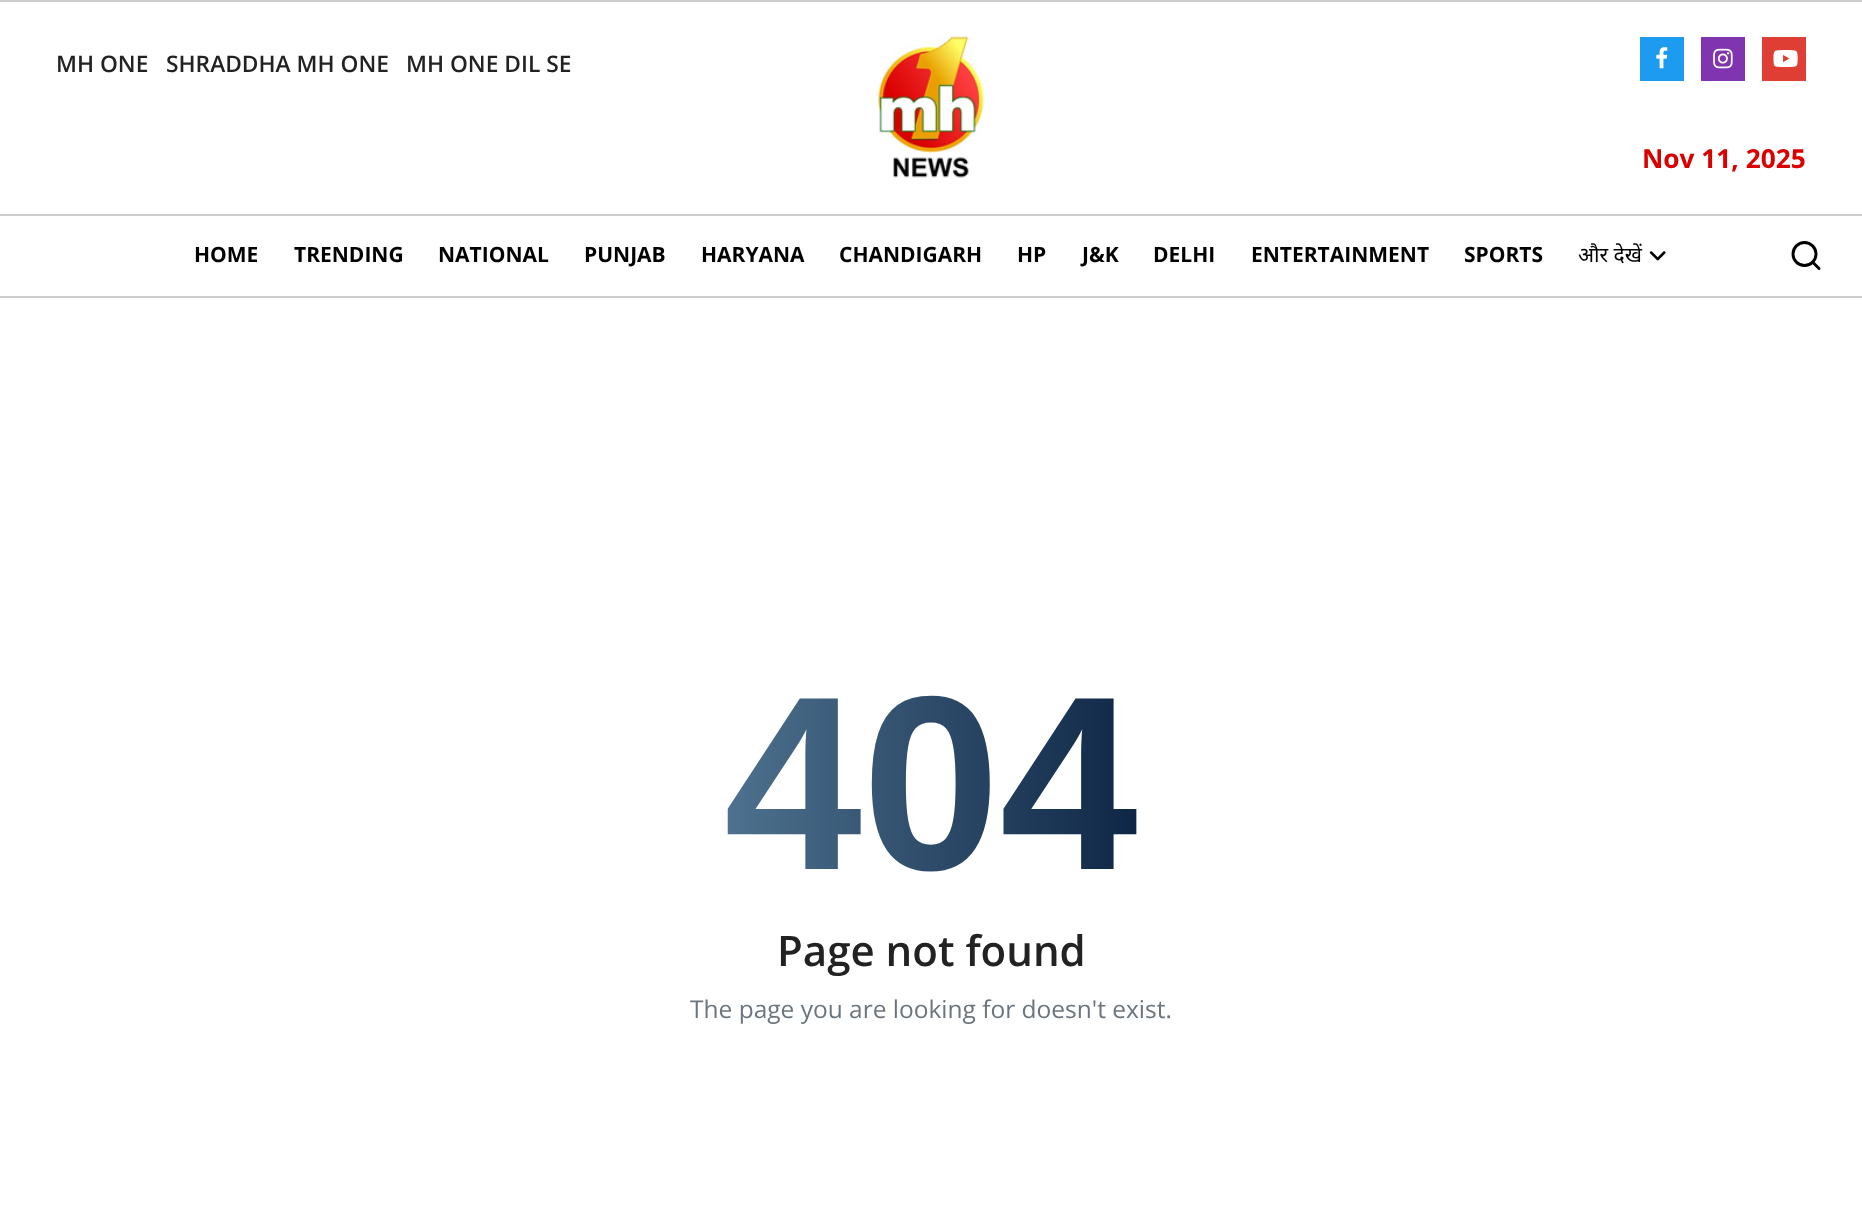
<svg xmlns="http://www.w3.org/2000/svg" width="1862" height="1210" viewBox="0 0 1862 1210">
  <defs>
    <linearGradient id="g1" gradientUnits="userSpaceOnUse" x1="690" y1="784" x2="1172" y2="784"><stop offset="0" stop-color="#537895"/><stop offset="1" stop-color="#09203f"/></linearGradient>
  </defs>
  <rect width="100%" height="100%" fill="#ffffff"/>
  <rect x="0" y="0" width="1862" height="2" fill="#cccccc"/>
  <text x="56" y="72" font-family="Open Sans" font-size="22.75" font-weight="600" fill="#222222">MH ONE</text>
  <text x="166" y="72" font-family="Open Sans" font-size="22.75" font-weight="600" fill="#222222">SHRADDHA MH ONE</text>
  <text x="406" y="72" font-family="Open Sans" font-size="22.75" font-weight="600" fill="#222222">MH ONE DIL SE</text>
  <image x="878" y="36" width="106" height="142" href="img1.png"/>
  <rect x="1640" y="37" width="44" height="44" fill="#1d9bf0"/>
  <image x="1656" y="47" width="12" height="22" href="img2.png"/>
  <rect x="1701" y="37" width="44" height="44" fill="#8134af"/>
  <image x="1713" y="48" width="20" height="21" href="img3.png"/>
  <rect x="1762" y="37" width="44" height="44" fill="#df3e34"/>
  <image x="1773" y="50" width="25" height="18" href="img4.png"/>
  <text x="1642" y="168" font-family="Open Sans" font-size="26.25" font-weight="bold" fill="#da0000">Nov 11, 2025</text>
  <rect x="0" y="214" width="1862" height="2" fill="#cccccc"/>
  <rect x="0" y="296" width="1862" height="2" fill="#cccccc"/>
  <text x="194" y="262" font-family="Open Sans" font-size="21" font-weight="bold" fill="#000000">HOME</text>
  <text x="294" y="262" font-family="Open Sans" font-size="21" font-weight="bold" fill="#000000">TRENDING</text>
  <text x="438" y="262" font-family="Open Sans" font-size="21" font-weight="bold" fill="#000000">NATIONAL</text>
  <text x="584" y="262" font-family="Open Sans" font-size="21" font-weight="bold" fill="#000000">PUNJAB</text>
  <text x="701" y="262" font-family="Open Sans" font-size="21" font-weight="bold" fill="#000000">HARYANA</text>
  <text x="839" y="262" font-family="Open Sans" font-size="21" font-weight="bold" fill="#000000">CHANDIGARH</text>
  <text x="1017" y="262" font-family="Open Sans" font-size="21" font-weight="bold" fill="#000000">HP</text>
  <text x="1082" y="262" font-family="Open Sans" font-size="21" font-weight="bold" fill="#000000">J&amp;K</text>
  <text x="1153" y="262" font-family="Open Sans" font-size="21" font-weight="bold" fill="#000000">DELHI</text>
  <text x="1251" y="262" font-family="Open Sans" font-size="21" font-weight="bold" fill="#000000">ENTERTAINMENT</text>
  <text x="1464" y="262" font-family="Open Sans" font-size="21" font-weight="bold" fill="#000000">SPORTS</text>
  <text x="1578" y="262" font-family="Noto Sans" font-size="21" fill="#000000">और देखें</text>
  <image x="1649" y="251" width="17" height="10" href="img5.png"/>
  <circle cx="1804.5" cy="254" r="11.5" fill="none" stroke="#000000" stroke-width="2.9"/>
  <path d="M1819 268.5L1813 262.5" fill="none" stroke="#000000" stroke-width="2.9" stroke-linecap="round" stroke-linejoin="round"/>
  <text x="724" y="869" font-family="Liberation Sans" font-size="248" font-weight="bold" fill="url(#g1)">404</text>
  <text x="777" y="966" font-family="Open Sans" font-size="42" font-weight="600" fill="#222222">Page not found</text>
  <text x="690" y="1018" font-family="Open Sans" font-size="24.5" fill="#6c757d">The page you are looking for doesn't exist.</text>
</svg>
